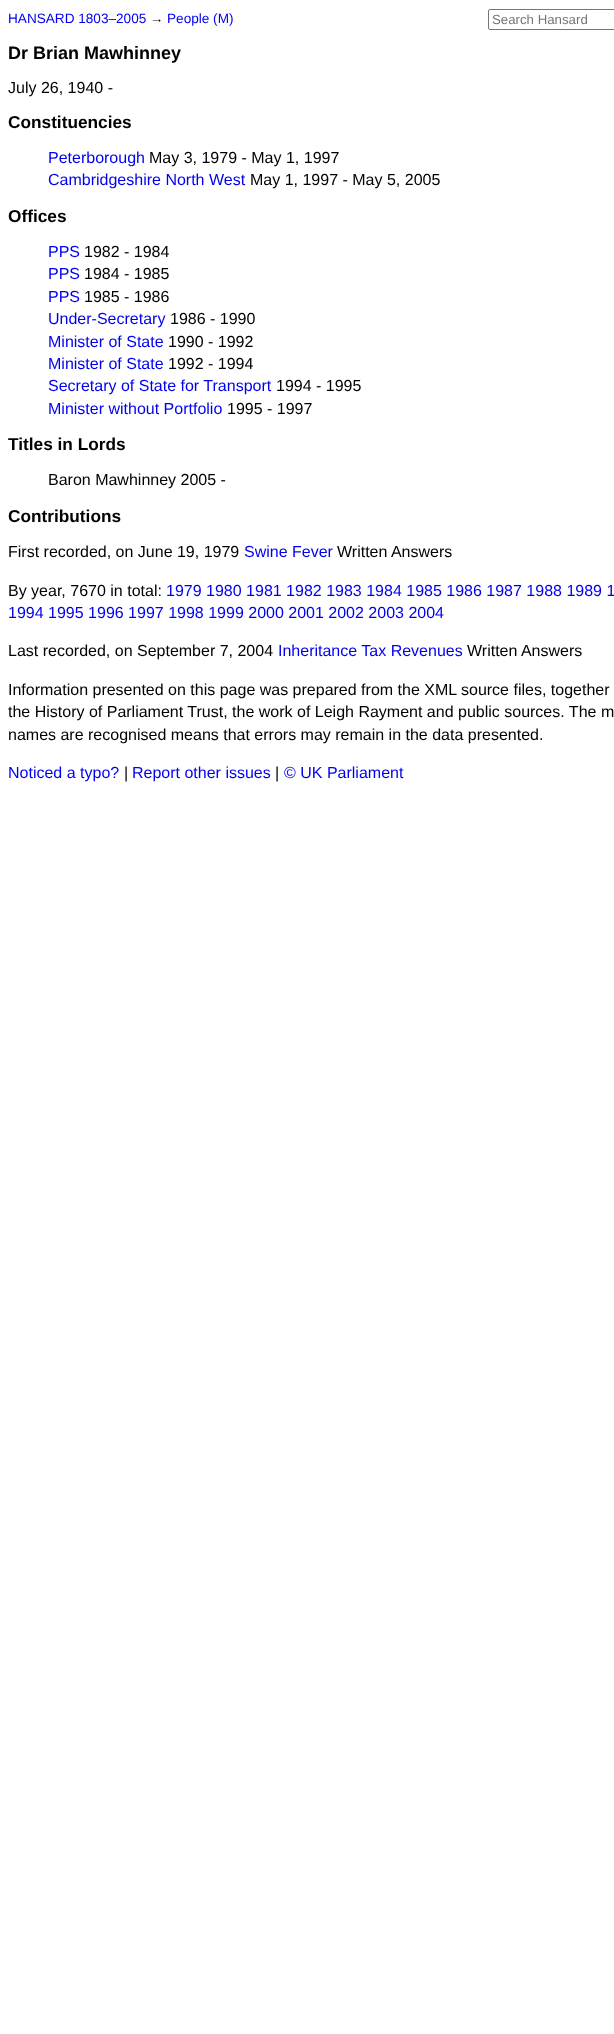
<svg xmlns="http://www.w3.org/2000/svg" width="614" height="2034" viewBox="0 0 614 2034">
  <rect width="100%" height="100%" fill="#ffffff"/>
  <text x="8" y="23" font-family="Liberation Sans" font-size="13.6" fill="#0000ee">HANSARD 1803–2005</text>
  <text x="150" y="23" font-family="Liberation Sans" font-size="13.6" fill="#000000">→</text>
  <text x="167" y="23" font-family="Liberation Sans" font-size="13.6" fill="#0000ee">People (M)</text>
  <rect x="488.5" y="9.5" width="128" height="20" rx="1.5" fill="none" stroke="#767676"/>
  <text x="492" y="24" font-family="Liberation Sans" font-size="13.25" fill="#757575">Search Hansard</text>
  <text x="8" y="59" font-family="Liberation Sans" font-size="18" font-weight="bold" fill="#000000">Dr Brian Mawhinney</text>
  <text x="8" y="93" font-family="Liberation Sans" font-size="16" fill="#000000">July 26, 1940 -</text>
  <text x="8" y="128" font-family="Liberation Sans" font-size="17.25" font-weight="bold" fill="#000000">Constituencies</text>
  <text x="48" y="163" font-family="Liberation Sans" font-size="16" fill="#0000ee">Peterborough</text>
  <text x="149" y="163" font-family="Liberation Sans" font-size="16" fill="#000000">May 3, 1979 - May 1, 1997</text>
  <text x="48" y="185" font-family="Liberation Sans" font-size="16" fill="#0000ee">Cambridgeshire North West</text>
  <text x="250" y="185" font-family="Liberation Sans" font-size="16" fill="#000000">May 1, 1997 - May 5, 2005</text>
  <text x="8" y="222" font-family="Liberation Sans" font-size="17.25" font-weight="bold" fill="#000000">Offices</text>
  <text x="48" y="257" font-family="Liberation Sans" font-size="16" fill="#0000ee">PPS</text>
  <text x="84" y="257" font-family="Liberation Sans" font-size="16" fill="#000000">1982 - 1984</text>
  <text x="48" y="279" font-family="Liberation Sans" font-size="16" fill="#0000ee">PPS</text>
  <text x="84" y="279" font-family="Liberation Sans" font-size="16" fill="#000000">1984 - 1985</text>
  <text x="48" y="302" font-family="Liberation Sans" font-size="16" fill="#0000ee">PPS</text>
  <text x="84" y="302" font-family="Liberation Sans" font-size="16" fill="#000000">1985 - 1986</text>
  <text x="48" y="324" font-family="Liberation Sans" font-size="16" fill="#0000ee">Under-Secretary</text>
  <text x="170" y="324" font-family="Liberation Sans" font-size="16" fill="#000000">1986 - 1990</text>
  <text x="48" y="347" font-family="Liberation Sans" font-size="16" fill="#0000ee">Minister of State</text>
  <text x="168" y="347" font-family="Liberation Sans" font-size="16" fill="#000000">1990 - 1992</text>
  <text x="48" y="369" font-family="Liberation Sans" font-size="16" fill="#0000ee">Minister of State</text>
  <text x="168" y="369" font-family="Liberation Sans" font-size="16" fill="#000000">1992 - 1994</text>
  <text x="48" y="391" font-family="Liberation Sans" font-size="16" fill="#0000ee">Secretary of State for Transport</text>
  <text x="276" y="391" font-family="Liberation Sans" font-size="16" fill="#000000">1994 - 1995</text>
  <text x="48" y="414" font-family="Liberation Sans" font-size="16" fill="#0000ee">Minister without Portfolio</text>
  <text x="227" y="414" font-family="Liberation Sans" font-size="16" fill="#000000">1995 - 1997</text>
  <text x="8" y="450" font-family="Liberation Sans" font-size="17.25" font-weight="bold" fill="#000000">Titles in Lords</text>
  <text x="48" y="485" font-family="Liberation Sans" font-size="16" fill="#000000">Baron Mawhinney 2005 -</text>
  <text x="8" y="522" font-family="Liberation Sans" font-size="17.25" font-weight="bold" fill="#000000">Contributions</text>
  <text x="8" y="557" font-family="Liberation Sans" font-size="16" fill="#000000">First recorded, on June 19, 1979</text>
  <text x="244" y="557" font-family="Liberation Sans" font-size="16" fill="#0000ee">Swine Fever</text>
  <text x="337" y="557" font-family="Liberation Sans" font-size="16" fill="#000000">Written Answers</text>
  <text x="8" y="596" font-family="Liberation Sans" font-size="16" fill="#000000">By year, 7670 in total:</text>
  <text x="166" y="596" font-family="Liberation Sans" font-size="16" fill="#0000ee">1979 1980 1981 1982 1983 1984 1985 1986 1987 1988 1989 1</text>
  <text x="8" y="618" font-family="Liberation Sans" font-size="16" fill="#0000ee">1994 1995 1996 1997 1998 1999 2000 2001 2002 2003 2004</text>
  <text x="8" y="656" font-family="Liberation Sans" font-size="16" fill="#000000">Last recorded, on September 7, 2004</text>
  <text x="278" y="656" font-family="Liberation Sans" font-size="16" fill="#0000ee">Inheritance Tax Revenues</text>
  <text x="467" y="656" font-family="Liberation Sans" font-size="16" fill="#000000">Written Answers</text>
  <text x="8" y="695" font-family="Liberation Sans" font-size="16" fill="#000000">Information presented on this page was prepared from the XML source files, together</text>
  <text x="8" y="717" font-family="Liberation Sans" font-size="16" fill="#000000">the History of Parliament Trust, the work of Leigh Rayment and public sources. The m</text>
  <text x="8" y="740" font-family="Liberation Sans" font-size="16" fill="#000000">names are recognised means that errors may remain in the data presented.</text>
  <text x="8" y="778" font-family="Liberation Sans" font-size="16" fill="#0000ee">Noticed a typo?</text>
  <text x="124" y="778" font-family="Liberation Sans" font-size="16" fill="#000000">|</text>
  <text x="132" y="778" font-family="Liberation Sans" font-size="16" fill="#0000ee">Report other issues</text>
  <text x="275" y="778" font-family="Liberation Sans" font-size="16" fill="#000000">|</text>
  <text x="284" y="778" font-family="Liberation Sans" font-size="16" fill="#0000ee">© UK Parliament</text>
</svg>
